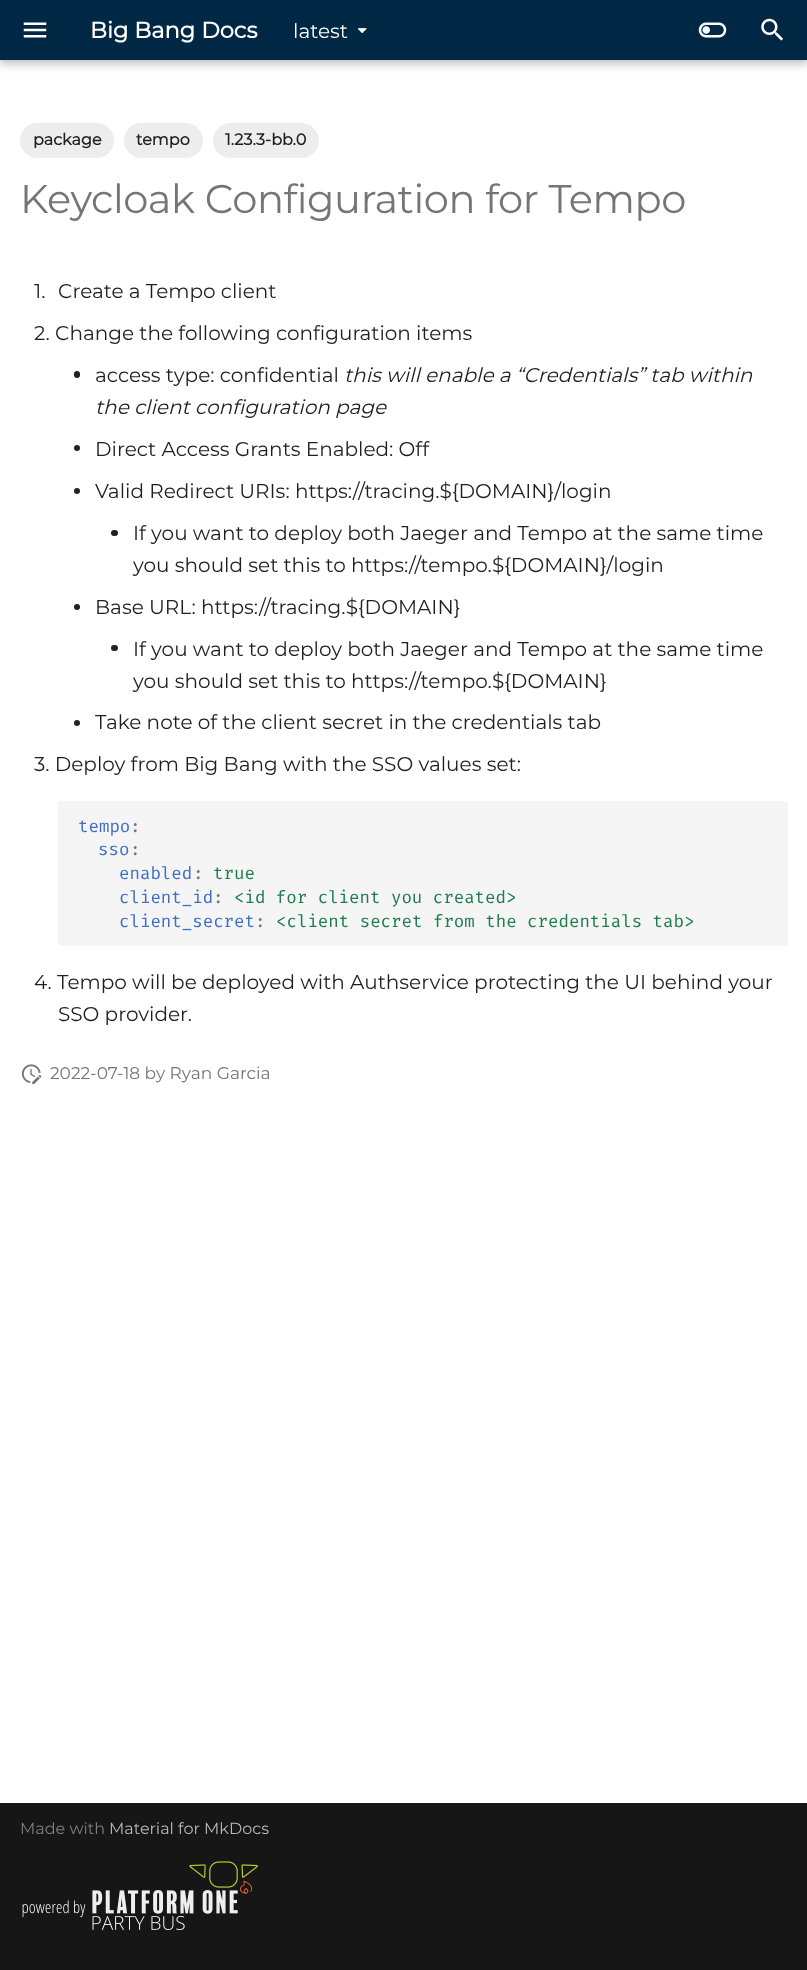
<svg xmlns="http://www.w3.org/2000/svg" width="807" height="1970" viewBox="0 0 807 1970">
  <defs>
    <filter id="blur1" x="-50%" y="-200%" width="200%" height="500%"><feGaussianBlur stdDeviation="5"/></filter>
    <filter id="blur2" x="-50%" y="-200%" width="200%" height="500%"><feGaussianBlur stdDeviation="2.5"/></filter>
  </defs>
  <rect width="100%" height="100%" fill="#ffffff"/>
  <rect x="0" y="5" width="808" height="60" fill="#000000" fill-opacity="0.2" filter="url(#blur1)"/>
  <rect x="0" y="0" width="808" height="60" fill="#000000" fill-opacity="0.1" filter="url(#blur2)"/>
  <rect x="0" y="0" width="807" height="60" fill="#002743"/>
  <image x="23" y="22" width="24" height="16" href="img1.png"/>
  <text x="90" y="38" font-family="Montserrat" font-size="22.5" font-weight="bold" fill="#ffffff">Big Bang Docs</text>
  <text x="293" y="38" font-family="Montserrat" font-size="20" fill="#ffffff">latest</text>
  <image x="358" y="28" width="9" height="5" href="img2.png"/>
  <image x="698" y="22" width="29" height="16" href="img3.png"/>
  <image x="761" y="18" width="22" height="23" href="img4.png"/>
  <rect x="20" y="123" width="94" height="35" rx="17.5" fill="#ededed"/>
  <text x="33" y="145" font-family="Montserrat" font-size="16" font-weight="bold" fill="#1f1f1f">package</text>
  <rect x="124" y="123" width="79" height="35" rx="17.5" fill="#ededed"/>
  <text x="136" y="145" font-family="Montserrat" font-size="16" font-weight="bold" fill="#1f1f1f">tempo</text>
  <rect x="213" y="123" width="106" height="35" rx="17.5" fill="#ededed"/>
  <text x="225" y="145" font-family="Montserrat" font-size="16" font-weight="bold" fill="#1f1f1f">1.23.3-bb.0</text>
  <text x="20" y="213" font-family="Montserrat" font-size="40" letter-spacing="-0.4" fill="#757575">Keycloak Configuration for Tempo</text>
  <text x="34" y="298" font-family="Montserrat" font-size="20" fill="#1f1f1f">1.</text>
  <text x="58" y="298" font-family="Montserrat" font-size="20" fill="#1f1f1f">Create a Tempo client</text>
  <text x="34" y="340" font-family="Montserrat" font-size="20" fill="#1f1f1f">2. Change the following configuration items</text>
  <rect x="74" y="371" width="6" height="7" rx="3" fill="#212121"/>
  <text x="95" y="382" font-family="Montserrat" font-size="20" fill="#1f1f1f">access type: confidential</text>
  <text x="344" y="382" font-family="Montserrat" font-size="20" font-style="italic" fill="#1f1f1f">this will enable a “Credentials” tab within</text>
  <text x="95" y="414" font-family="Montserrat" font-size="20" font-style="italic" fill="#1f1f1f">the client configuration page</text>
  <circle cx="77" cy="448" r="3" fill="#212121"/>
  <text x="95" y="456" font-family="Montserrat" font-size="20" fill="#1f1f1f">Direct Access Grants Enabled: Off</text>
  <circle cx="77" cy="491" r="3" fill="#212121"/>
  <text x="95" y="498" font-family="Montserrat" font-size="20" fill="#1f1f1f">Valid Redirect URIs: https://tracing.${DOMAIN}/login</text>
  <rect x="111" y="530" width="7" height="6" rx="3" fill="#212121"/>
  <text x="133" y="540" font-family="Montserrat" font-size="20" fill="#1f1f1f">If you want to deploy both Jaeger and Tempo at the same time</text>
  <text x="133" y="572" font-family="Montserrat" font-size="20" fill="#1f1f1f">you should set this to https://tempo.${DOMAIN}/login</text>
  <circle cx="77" cy="607" r="3" fill="#212121"/>
  <text x="95" y="614" font-family="Montserrat" font-size="20" fill="#1f1f1f">Base URL: https://tracing.${DOMAIN}</text>
  <rect x="111" y="645" width="7" height="6" rx="3" fill="#212121"/>
  <text x="133" y="656" font-family="Montserrat" font-size="20" fill="#1f1f1f">If you want to deploy both Jaeger and Tempo at the same time</text>
  <text x="133" y="688" font-family="Montserrat" font-size="20" fill="#1f1f1f">you should set this to https://tempo.${DOMAIN}</text>
  <circle cx="77" cy="723" r="3" fill="#212121"/>
  <text x="95" y="729" font-family="Montserrat" font-size="20" fill="#1f1f1f">Take note of the client secret in the credentials tab</text>
  <text x="34" y="771" font-family="Montserrat" font-size="20" fill="#1f1f1f">3. Deploy from Big Bang with the SSO values set:</text>
  <rect x="58" y="801" width="730" height="145" rx="2.5" fill="#f5f5f5"/>
  <text x="78" y="832" font-family="Fira Code" font-size="17" fill="#3f6ec6">tempo</text>
  <text x="130" y="832" font-family="Fira Code" font-size="17" fill="#757575">:</text>
  <text x="98" y="855" font-family="Fira Code" font-size="17" fill="#3f6ec6">sso</text>
  <text x="130" y="855" font-family="Fira Code" font-size="17" fill="#757575">:</text>
  <text x="119" y="879" font-family="Fira Code" font-size="17" fill="#3f6ec6">enabled</text>
  <text x="193" y="879" font-family="Fira Code" font-size="17" fill="#757575">:</text>
  <text x="213" y="879" font-family="Fira Code" font-size="17" fill="#1c7d4d">true</text>
  <text x="119" y="903" font-family="Fira Code" font-size="17" fill="#3f6ec6">client_id</text>
  <text x="213" y="903" font-family="Fira Code" font-size="17" fill="#757575">:</text>
  <text x="234" y="903" font-family="Fira Code" font-size="17" fill="#1c7d4d">&lt;id for client you created&gt;</text>
  <text x="119" y="927" font-family="Fira Code" font-size="17" fill="#3f6ec6">client_secret</text>
  <text x="255" y="927" font-family="Fira Code" font-size="17" fill="#757575">:</text>
  <text x="276" y="927" font-family="Fira Code" font-size="17" fill="#1c7d4d">&lt;client secret from the credentials tab&gt;</text>
  <text x="34" y="989" font-family="Montserrat" font-size="20" fill="#1f1f1f">4. Tempo will be deployed with Authservice protecting the UI behind your</text>
  <text x="58" y="1021" font-family="Montserrat" font-size="20" fill="#1f1f1f">SSO provider.</text>
  <image x="21" y="1064" width="21" height="21" href="img5.png"/>
  <text x="50" y="1079" font-family="Montserrat" font-size="17" fill="#757575">2022-07-18 by Ryan Garcia</text>
  <rect x="0" y="1803" width="807" height="167" fill="#161616"/>
  <text x="20" y="1834" font-family="Montserrat" font-size="16" fill="#7f7f7f">Made with</text>
  <text x="109" y="1834" font-family="Montserrat" font-size="16" fill="#b9b9b9">Material for MkDocs</text>
  <image x="22" y="1861" width="236" height="69" href="img6.png"/>
</svg>
